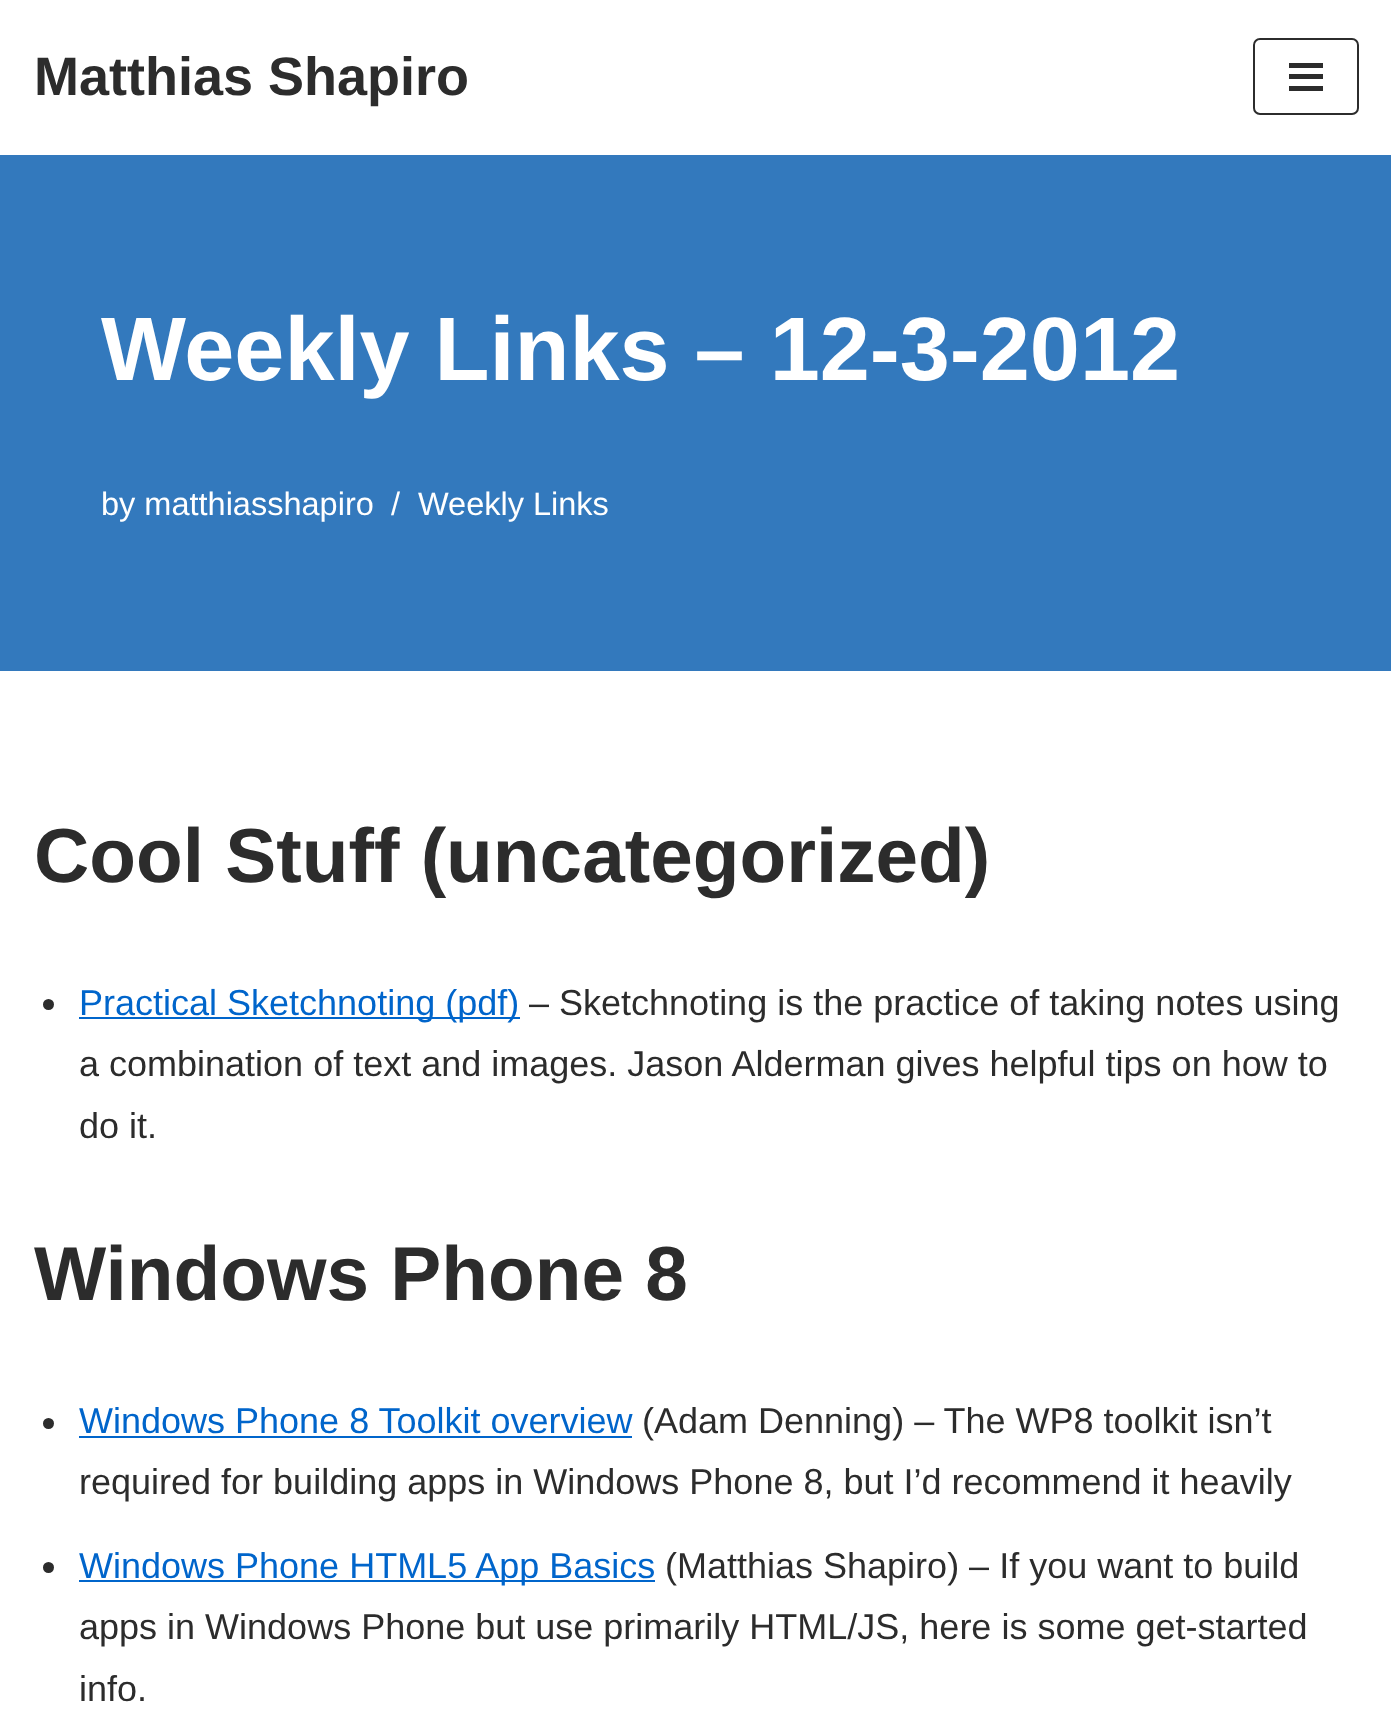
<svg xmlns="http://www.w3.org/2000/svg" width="1391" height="1716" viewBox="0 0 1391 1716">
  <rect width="100%" height="100%" fill="#ffffff"/>
  <rect x="0" y="155" width="1391" height="516" fill="#3379bd"/>
  <text x="34" y="95" font-family="Liberation Sans" font-size="54" font-weight="bold" fill="#2c2c2c">Matthias Shapiro</text>
  <rect x="1254" y="39" width="104" height="75" rx="6" fill="none" stroke="#2c2c2c" stroke-width="2"/>
  <rect x="1289" y="63" width="34" height="5" fill="#2c2c2c"/>
  <rect x="1289" y="74" width="34" height="5" fill="#2c2c2c"/>
  <rect x="1289" y="86" width="34" height="5" fill="#2c2c2c"/>
  <text x="101" y="380" font-family="Liberation Sans" font-size="90" font-weight="bold" fill="#ffffff">Weekly Links – 12-3-2012</text>
  <text x="101" y="515" font-family="Liberation Sans" font-size="32.5" fill="#ffffff">by matthiasshapiro</text>
  <text x="391" y="515" font-family="Liberation Sans" font-size="32.5" fill="#ffffff">/</text>
  <text x="418" y="515" font-family="Liberation Sans" font-size="32.5" fill="#ffffff">Weekly Links</text>
  <text x="34" y="882" font-family="Liberation Sans" font-size="76.5" font-weight="bold" fill="#2c2c2c">Cool Stuff (uncategorized)</text>
  <circle cx="48.5" cy="1004.5" r="5.5" fill="#2c2c2c"/>
  <rect x="79" y="1017" width="441" height="2" fill="#0065cb"/>
  <text x="79" y="1015" font-family="Liberation Sans" font-size="36" fill="#0065cb">Practical Sketchnoting (pdf)</text>
  <text x="529" y="1015" font-family="Liberation Sans" font-size="36" fill="#2c2c2c">– Sketchnoting is the practice of taking notes using</text>
  <text x="79" y="1076" font-family="Liberation Sans" font-size="36" fill="#2c2c2c">a combination of text and images. Jason Alderman gives helpful tips on how to</text>
  <text x="79" y="1138" font-family="Liberation Sans" font-size="36" fill="#2c2c2c">do it.</text>
  <text x="34" y="1300" font-family="Liberation Sans" font-size="76.5" font-weight="bold" fill="#2c2c2c">Windows Phone 8</text>
  <circle cx="48.5" cy="1423.5" r="5.5" fill="#2c2c2c"/>
  <text x="79" y="1433" font-family="Liberation Sans" font-size="36" fill="#0065cb">Windows Phone 8 Toolkit overview</text>
  <rect x="79" y="1436" width="553" height="2" fill="#0065cb"/>
  <text x="642" y="1433" font-family="Liberation Sans" font-size="36" fill="#2c2c2c">(Adam Denning) – The WP8 toolkit isn’t</text>
  <text x="79" y="1494" font-family="Liberation Sans" font-size="36" fill="#2c2c2c">required for building apps in Windows Phone 8, but I’d recommend it heavily</text>
  <circle cx="48.5" cy="1567.5" r="5.5" fill="#2c2c2c"/>
  <rect x="79" y="1580" width="576" height="2" fill="#0065cb"/>
  <text x="79" y="1578" font-family="Liberation Sans" font-size="36" fill="#0065cb">Windows Phone HTML5 App Basics</text>
  <text x="665" y="1578" font-family="Liberation Sans" font-size="36" fill="#2c2c2c">(Matthias Shapiro) – If you want to build</text>
  <text x="79" y="1639" font-family="Liberation Sans" font-size="36" fill="#2c2c2c">apps in Windows Phone but use primarily HTML/JS, here is some get-started</text>
  <text x="79" y="1701" font-family="Liberation Sans" font-size="36" fill="#2c2c2c">info.</text>
</svg>
